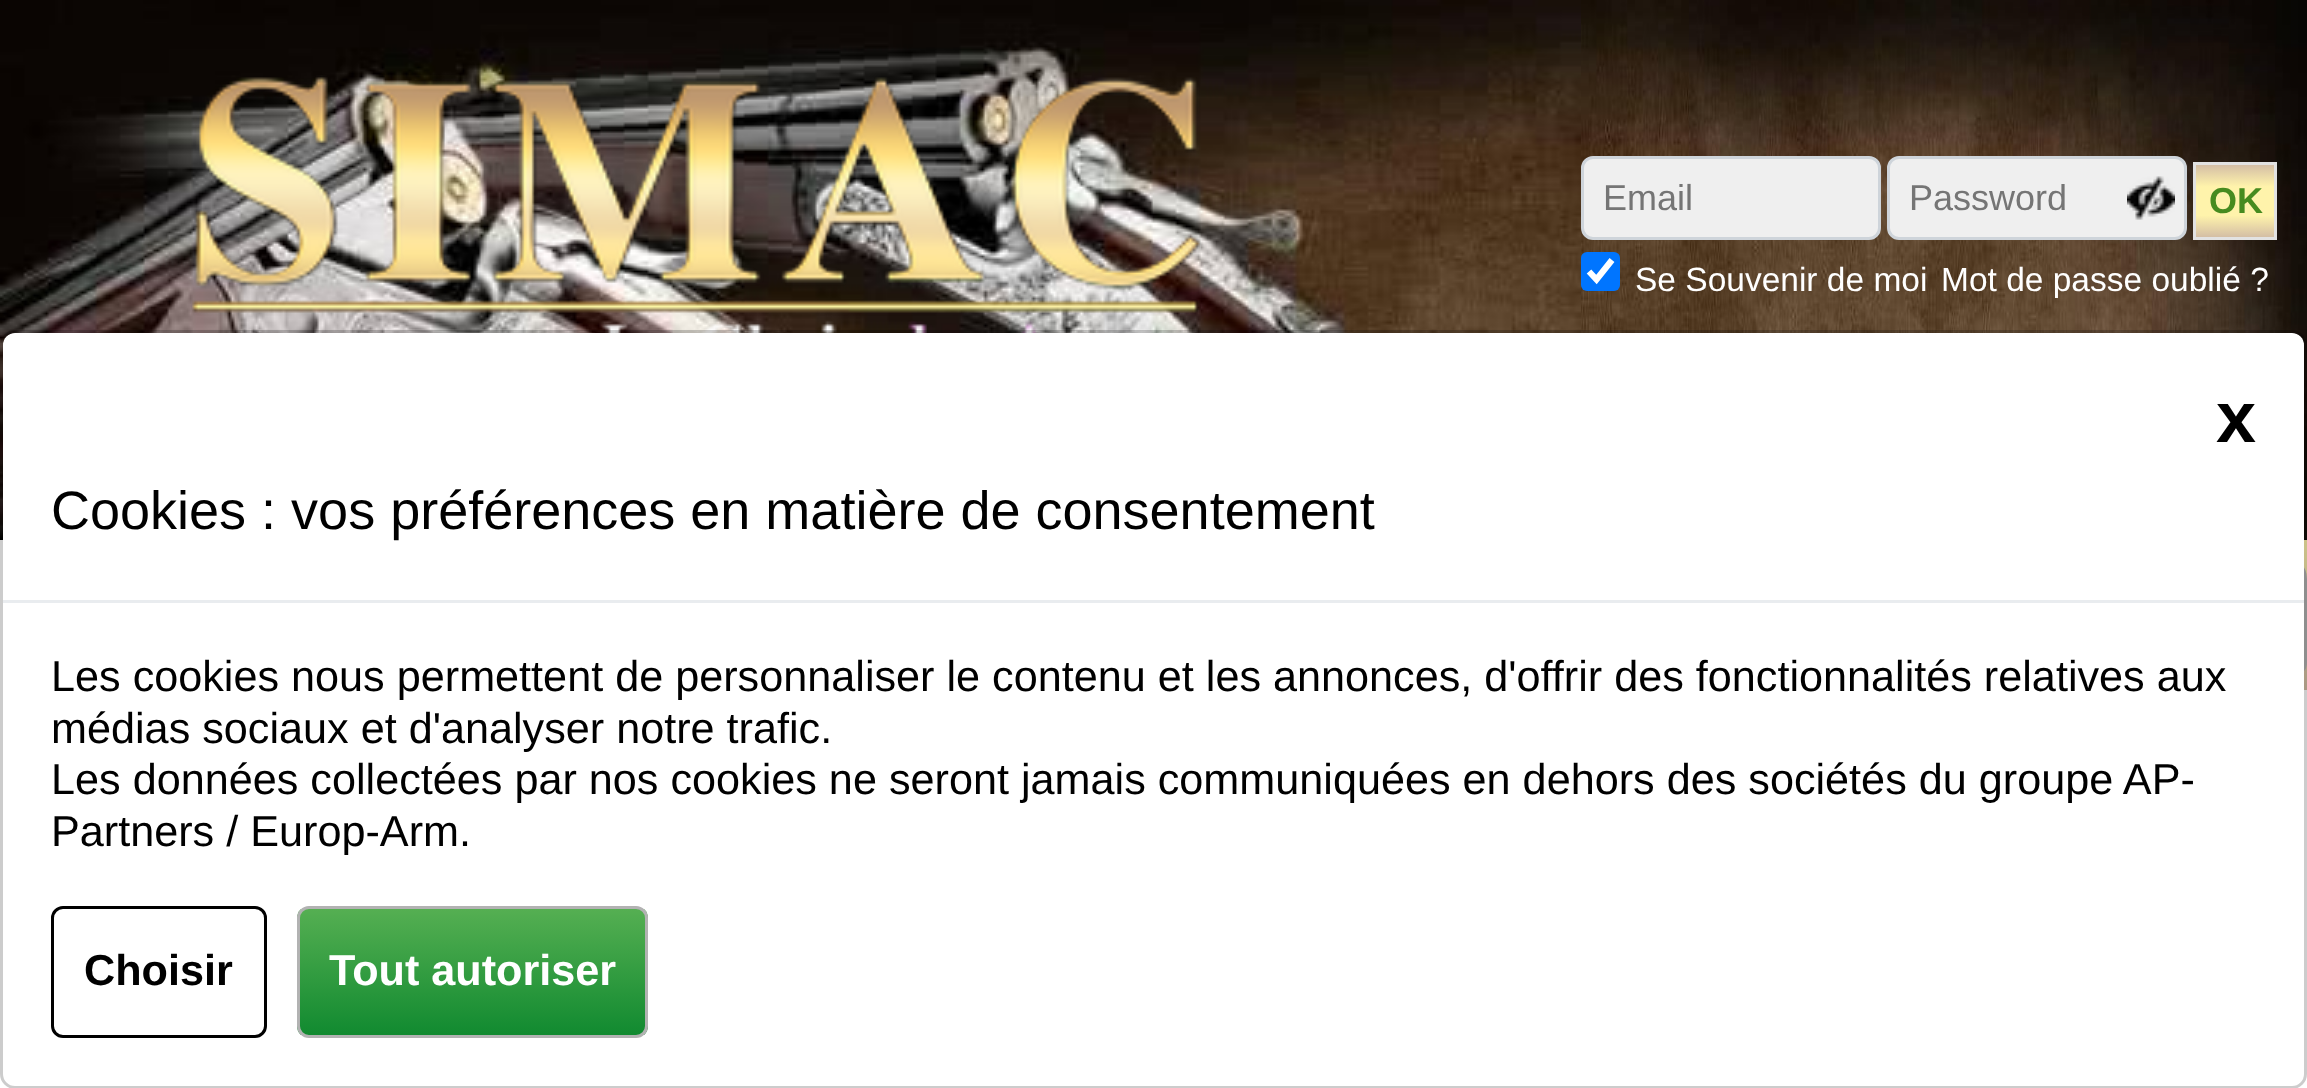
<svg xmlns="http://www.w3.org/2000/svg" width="2307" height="1088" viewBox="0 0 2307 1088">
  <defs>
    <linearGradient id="g1" gradientUnits="userSpaceOnUse" x1="2235" y1="165" x2="2235" y2="237"><stop offset="0" stop-color="#d4bea5"/><stop offset="0.3" stop-color="#fff3ab"/><stop offset="0.7" stop-color="#fff3ab"/><stop offset="1" stop-color="#d4bea5"/></linearGradient>
    <linearGradient id="g2" gradientUnits="userSpaceOnUse" x1="1154" y1="540" x2="1154" y2="690"><stop offset="0" stop-color="#fff3ab"/><stop offset="1" stop-color="#d4bea5"/></linearGradient>
    <clipPath id="clip1"><rect x="297" y="906" width="351" height="132" rx="12"/></clipPath>
    <linearGradient id="g3" gradientUnits="userSpaceOnUse" x1="473" y1="909" x2="473" y2="1035"><stop offset="0" stop-color="#55af52"/><stop offset="1" stop-color="#118a30"/></linearGradient>
  </defs>
  <rect width="100%" height="100%" fill="#ffffff"/>
  <image x="0" y="0" width="1581" height="540" href="img1.png"/>
  <image x="1581" y="0" width="726" height="540" href="img2.png"/>
  <image x="192" y="75" width="1011" height="258" href="img3.png"/>
  <rect x="1582.5" y="157.5" width="297" height="81" rx="10.5" fill="#efefef" stroke="#ced4da" stroke-width="3"/>
  <text x="1603" y="210" font-family="Liberation Sans" font-size="36" fill="#757575">Email</text>
  <rect x="1888.5" y="157.5" width="297" height="81" rx="10.5" fill="#efefef" stroke="#ced4da" stroke-width="3"/>
  <text x="1909" y="210" font-family="Liberation Sans" font-size="36" fill="#757575">Password</text>
  <image x="2127" y="176" width="48" height="44" href="img4.png"/>
  <rect x="2196" y="165" width="78" height="72" fill="url(#g1)"/>
  <rect x="2194.5" y="163.5" width="81" height="75" fill="none" stroke="#e2e2e2" stroke-width="3"/>
  <text x="2209" y="213" font-family="Liberation Sans" font-size="36" font-weight="bold" fill="#478b1f">OK</text>
  <rect x="1581" y="252" width="39" height="39" rx="6" fill="#0075ff"/>
  <path d="M1589 271.5L1596.5 279.5L1612 260" fill="none" stroke="#ffffff" stroke-width="6.2"/>
  <text x="1635" y="291" font-family="Liberation Sans" font-size="33.5" fill="#ffffff">Se Souvenir de moi</text>
  <text x="1941" y="291" font-family="Liberation Sans" font-size="33.5" fill="#ffffff">Mot de passe oublié ?</text>
  <rect x="2304" y="540" width="3" height="150" fill="url(#g2)"/>
  <path d="M2100 556.5H2283C2295.5 556.5 2305.5 566.5 2305.5 579V663C2305.5 669 2301 673.5 2295 673.5H2100C2094 673.5 2089.5 669 2089.5 663V567C2089.5 561 2094 556.5 2100 556.5Z" fill="none" stroke="#b2b2b2" stroke-width="3"/>
  <rect x="3" y="333" width="2301" height="753" rx="12" fill="#ffffff"/>
  <rect x="1.5" y="331.5" width="2304" height="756" rx="13.5" fill="none" stroke="#000000" stroke-opacity="0.2" stroke-width="3"/>
  <rect x="3" y="600" width="2301" height="3" fill="#e9ecef"/>
  <text x="2216" y="442" font-family="Liberation Sans" font-size="72" font-weight="bold" fill="#000000">x</text>
  <text x="51" y="529" font-family="Liberation Sans" font-size="54" fill="#000000">Cookies : vos préférences en matière de consentement</text>
  <text x="51" y="691" font-family="Liberation Sans" font-size="43.2" fill="#000000">Les cookies nous permettent de personnaliser le contenu et les annonces, d'offrir des fonctionnalités relatives aux</text>
  <text x="51" y="743" font-family="Liberation Sans" font-size="43.2" fill="#000000">médias sociaux et d'analyser notre trafic.</text>
  <text x="51" y="794" font-family="Liberation Sans" font-size="43.2" fill="#000000">Les données collectées par nos cookies ne seront jamais communiquées en dehors des sociétés du groupe AP-</text>
  <text x="51" y="846" font-family="Liberation Sans" font-size="43.2" fill="#000000">Partners / Europ-Arm.</text>
  <rect x="52.5" y="907.5" width="213" height="129" rx="10.5" fill="none" stroke="#000000" stroke-width="3"/>
  <text x="84" y="985" font-family="Liberation Sans" font-size="43.2" font-weight="bold" fill="#000000">Choisir</text>
  <g clip-path="url(#clip1)">
    <rect x="297" y="909" width="351" height="126" fill="url(#g3)"/>
  </g>
  <rect x="298.5" y="907.5" width="348" height="129" rx="10.5" fill="none" stroke="#b2b2b2" stroke-width="3"/>
  <text x="329" y="985" font-family="Liberation Sans" font-size="43.2" font-weight="bold" fill="#ffffff">Tout autoriser</text>
</svg>
